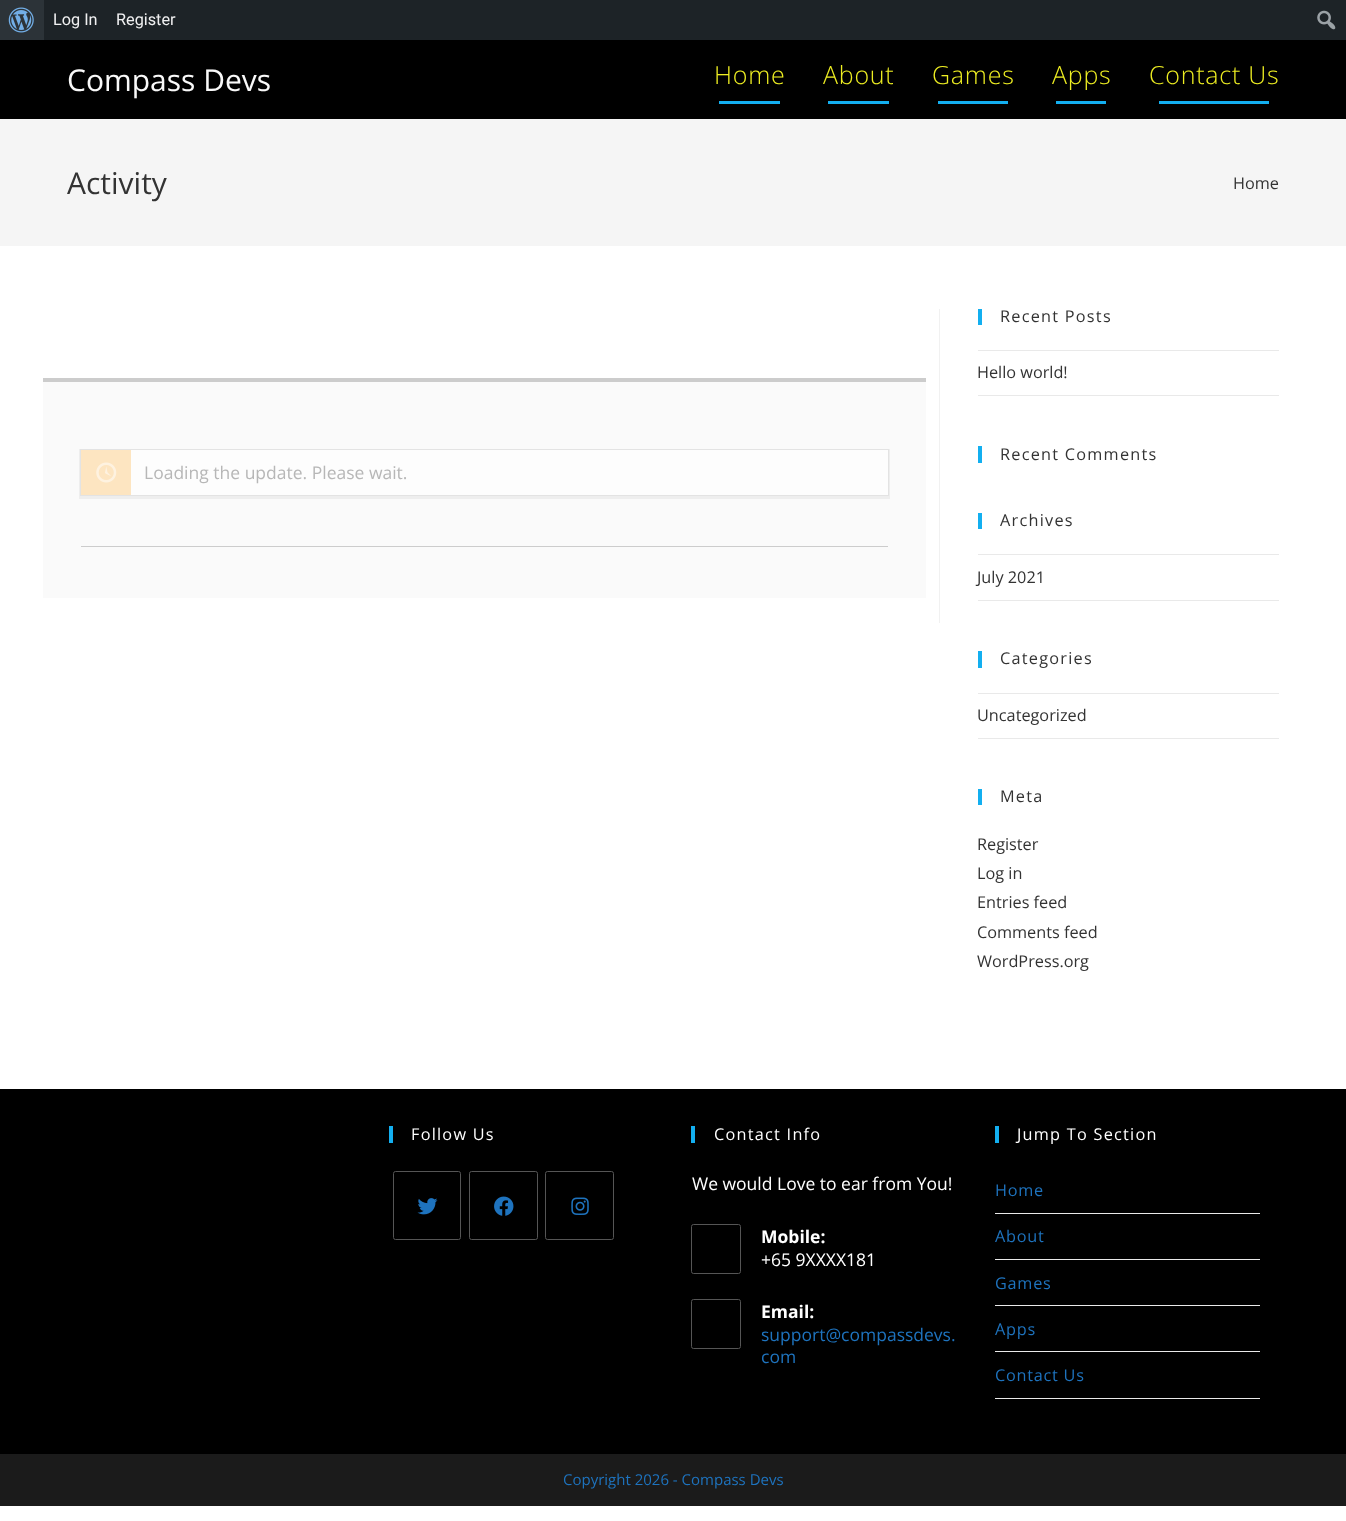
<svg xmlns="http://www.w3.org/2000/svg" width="1346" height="1521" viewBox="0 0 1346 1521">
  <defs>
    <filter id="blur1" x="-50%" y="-200%" width="200%" height="500%"><feGaussianBlur stdDeviation="0.5"/></filter>
  </defs>
  <rect width="100%" height="100%" fill="#ffffff"/>
  <rect x="44" y="0" width="1302" height="40" fill="#1d2327"/>
  <rect x="0" y="0" width="44" height="40" fill="#2c3338"/>
  <image x="8" y="7" width="26" height="26" href="img1.png"/>
  <text x="53" y="25" font-family="Roboto" font-size="16.25" fill="#f0f0f1">Log In</text>
  <text x="116" y="25" font-family="Roboto" font-size="16.25" fill="#f0f0f1">Register</text>
  <image x="1317" y="10" width="19" height="20" href="img2.png"/>
  <rect x="0" y="40" width="1346" height="79" fill="#000000"/>
  <text x="67" y="91" font-family="Open Sans" font-size="30" fill="#f9f9f9">Compass Devs</text>
  <text x="714" y="84" font-family="Open Sans" font-size="25" font-weight="300" letter-spacing="0.75" fill="#eeee22">Home</text>
  <rect x="719" y="101" width="61" height="3" fill="#13aff0"/>
  <text x="823" y="84" font-family="Open Sans" font-size="25" font-weight="300" letter-spacing="0.75" fill="#eeee22">About</text>
  <rect x="828" y="101" width="61" height="3" fill="#13aff0"/>
  <text x="932" y="84" font-family="Open Sans" font-size="25" font-weight="300" letter-spacing="0.75" fill="#eeee22">Games</text>
  <rect x="938" y="101" width="70" height="3" fill="#13aff0"/>
  <text x="1052" y="84" font-family="Open Sans" font-size="25" font-weight="300" letter-spacing="0.75" fill="#eeee22">Apps</text>
  <rect x="1056" y="101" width="50" height="3" fill="#13aff0"/>
  <text x="1149" y="84" font-family="Open Sans" font-size="25" font-weight="300" letter-spacing="0.75" fill="#eeee22">Contact Us</text>
  <rect x="1159" y="101" width="110" height="3" fill="#13aff0"/>
  <rect x="0" y="119" width="1346" height="127" fill="#f5f5f5"/>
  <text x="67" y="194" font-family="Open Sans" font-size="30" fill="#333333">Activity</text>
  <text x="1233" y="189" font-family="Open Sans" font-size="16.25" fill="#333333">Home</text>
  <rect x="939" y="309" width="1" height="314" fill="#f1f1f1"/>
  <rect x="43" y="382" width="883" height="216" fill="#fafafa"/>
  <rect x="43" y="378" width="883" height="4" fill="#cccccc"/>
  <rect x="81" y="546" width="807" height="1" fill="#cccccc"/>
  <rect x="79" y="449" width="811" height="50" fill="#7d7d7d" fill-opacity="0.1" filter="url(#blur1)"/>
  <rect x="131" y="450" width="757" height="45" fill="#fdfdfd"/>
  <rect x="80.5" y="449.5" width="808" height="46" fill="none" stroke="#e3e3e3"/>
  <rect x="81" y="450" width="50" height="45" fill="#fde5c1"/>
  <image x="96" y="462" width="21" height="21" href="img3.png"/>
  <text x="144" y="479" font-family="Open Sans" font-size="17.5" fill="#b7b7b7">Loading the update. Please wait.</text>
  <rect x="978" y="309" width="4" height="16" fill="#13aff0"/>
  <text x="1000" y="322" font-family="Open Sans" font-size="16.25" letter-spacing="1.25" fill="#333333">Recent Posts</text>
  <rect x="978" y="350" width="301" height="1" fill="#e9e9e9"/>
  <rect x="978" y="395" width="301" height="1" fill="#e9e9e9"/>
  <text x="977" y="378" font-family="Open Sans" font-size="16.25" fill="#333333">Hello world!</text>
  <rect x="978" y="446" width="4" height="17" fill="#13aff0"/>
  <text x="1000" y="460" font-family="Open Sans" font-size="16.25" letter-spacing="1.25" fill="#333333">Recent Comments</text>
  <rect x="978" y="513" width="4" height="16" fill="#13aff0"/>
  <text x="1000" y="526" font-family="Open Sans" font-size="16.25" letter-spacing="1.25" fill="#333333">Archives</text>
  <rect x="978" y="554" width="301" height="1" fill="#e9e9e9"/>
  <rect x="978" y="600" width="301" height="1" fill="#e9e9e9"/>
  <text x="977" y="583" font-family="Open Sans" font-size="16.25" fill="#333333">July 2021</text>
  <rect x="978" y="651" width="4" height="17" fill="#13aff0"/>
  <text x="1000" y="664" font-family="Open Sans" font-size="16.25" letter-spacing="1.25" fill="#333333">Categories</text>
  <rect x="978" y="693" width="301" height="1" fill="#e9e9e9"/>
  <rect x="978" y="738" width="301" height="1" fill="#e9e9e9"/>
  <text x="977" y="721" font-family="Open Sans" font-size="16.25" fill="#333333">Uncategorized</text>
  <rect x="978" y="789" width="4" height="16" fill="#13aff0"/>
  <text x="1000" y="802" font-family="Open Sans" font-size="16.25" letter-spacing="1.25" fill="#333333">Meta</text>
  <text x="977" y="850" font-family="Open Sans" font-size="16.25" fill="#333333">Register</text>
  <text x="977" y="879" font-family="Open Sans" font-size="16.25" fill="#333333">Log in</text>
  <text x="977" y="908" font-family="Open Sans" font-size="16.25" fill="#333333">Entries feed</text>
  <text x="977" y="938" font-family="Open Sans" font-size="16.25" fill="#333333">Comments feed</text>
  <text x="977" y="967" font-family="Open Sans" font-size="16.25" fill="#333333">WordPress.org</text>
  <rect x="0" y="1089" width="1346" height="365" fill="#000000"/>
  <rect x="389" y="1126" width="4" height="17" fill="#13aff0"/>
  <text x="411" y="1140" font-family="Open Sans" font-size="16.25" letter-spacing="1.25" fill="#ffffff">Follow Us</text>
  <rect x="393.5" y="1171.5" width="67" height="68" rx="2" fill="none" stroke="#555555"/>
  <image x="417" y="1198" width="21" height="17" href="img4.png"/>
  <rect x="469.5" y="1171.5" width="68" height="68" rx="2" fill="none" stroke="#555555"/>
  <image x="494" y="1196" width="20" height="20" href="img5.png"/>
  <rect x="545.5" y="1171.5" width="68" height="68" rx="2" fill="none" stroke="#555555"/>
  <image x="571" y="1197" width="18" height="18" href="img6.png"/>
  <rect x="691" y="1126" width="4" height="17" fill="#13aff0"/>
  <text x="714" y="1140" font-family="Open Sans" font-size="16.25" letter-spacing="1.25" fill="#ffffff">Contact Info</text>
  <text x="692" y="1190" font-family="Open Sans" font-size="17.5" fill="#ffffff">We would Love to ear from You!</text>
  <rect x="691.5" y="1224.5" width="49" height="49" rx="2" fill="none" stroke="#555555"/>
  <text x="761" y="1243" font-family="Open Sans" font-size="17.5" font-weight="bold" fill="#ffffff">Mobile:</text>
  <text x="761" y="1266" font-family="Open Sans" font-size="17.5" fill="#ffffff">+65 9XXXX181</text>
  <rect x="691.5" y="1299.5" width="49" height="49" rx="2" fill="none" stroke="#555555"/>
  <text x="761" y="1318" font-family="Open Sans" font-size="17.5" font-weight="bold" fill="#ffffff">Email:</text>
  <text x="761" y="1341" font-family="Open Sans" font-size="17.5" fill="#1e73be">support@compassdevs.</text>
  <text x="761" y="1363" font-family="Open Sans" font-size="17.5" fill="#1e73be">com</text>
  <rect x="995" y="1126" width="4" height="17" fill="#13aff0"/>
  <text x="1017" y="1140" font-family="Open Sans" font-size="16.25" letter-spacing="1.25" fill="#ffffff">Jump To Section</text>
  <rect x="995" y="1213" width="265" height="1" fill="#e9e9e9"/>
  <text x="995" y="1196" font-family="Open Sans" font-size="16.25" letter-spacing="0.75" fill="#1e73be">Home</text>
  <rect x="995" y="1259" width="265" height="1" fill="#e9e9e9"/>
  <text x="995" y="1242" font-family="Open Sans" font-size="16.25" letter-spacing="0.75" fill="#1e73be">About</text>
  <rect x="995" y="1305" width="265" height="1" fill="#e9e9e9"/>
  <text x="995" y="1289" font-family="Open Sans" font-size="16.25" letter-spacing="0.75" fill="#1e73be">Games</text>
  <rect x="995" y="1351" width="265" height="1" fill="#e9e9e9"/>
  <text x="995" y="1335" font-family="Open Sans" font-size="16.25" letter-spacing="0.75" fill="#1e73be">Apps</text>
  <rect x="995" y="1398" width="265" height="1" fill="#e9e9e9"/>
  <text x="995" y="1381" font-family="Open Sans" font-size="16.25" letter-spacing="0.75" fill="#1e73be">Contact Us</text>
  <rect x="0" y="1454" width="1346" height="52" fill="#1b1b1b"/>
  <text x="563" y="1485" font-family="Open Sans" font-size="15" fill="#1e73be">Copyright 2026 - Compass Devs</text>
</svg>
